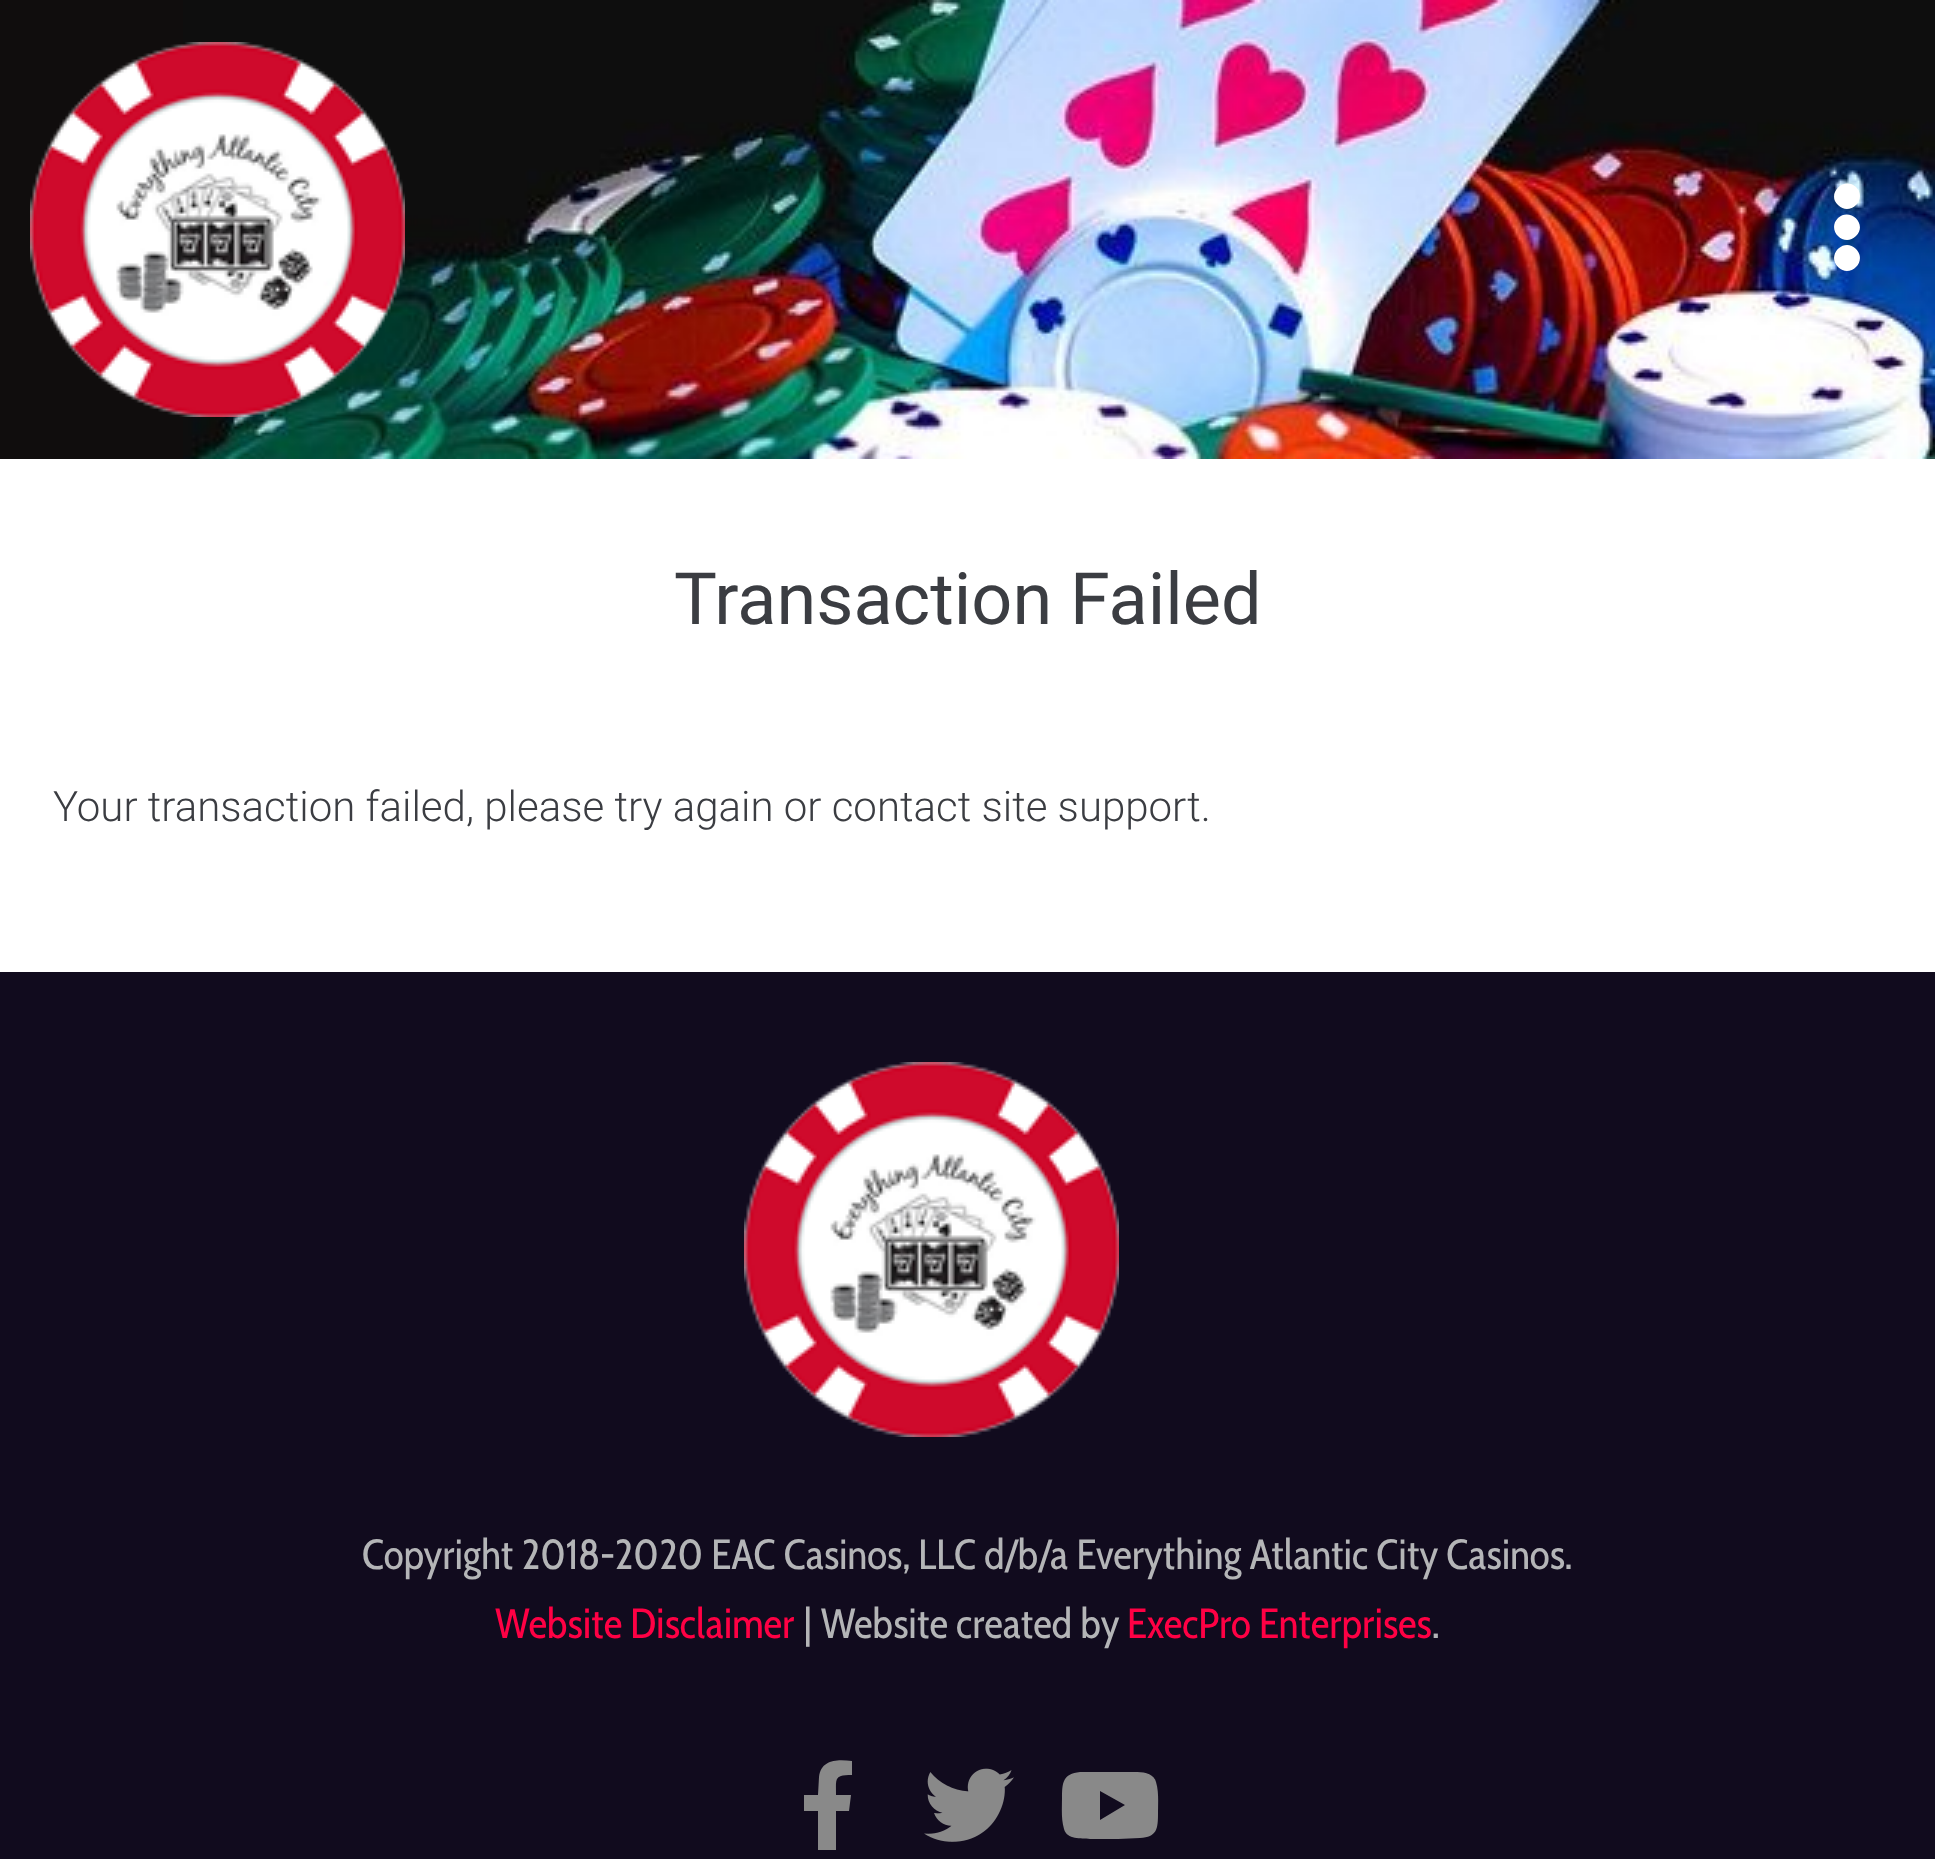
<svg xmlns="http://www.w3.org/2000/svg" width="1935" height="1859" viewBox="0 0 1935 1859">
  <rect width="100%" height="100%" fill="#ffffff"/>
  <rect x="0" y="0" width="183" height="459" fill="#100d0d"/>
  <image x="183" y="0" width="1752" height="459" href="img1.png"/>
  <image x="30" y="42" width="375" height="375" href="img2.png"/>
  <path d="M1838 218C1850 207 1868 224 1856 236C1844 248 1826 230 1838 218ZM1838 205C1826 194 1844 176 1856 187C1868 199 1850 217 1838 205ZM1838 267C1826 255 1844 237 1856 249C1868 261 1850 279 1838 267Z" fill="#ffffff"/>
  <text x="674" y="624" font-family="Roboto" font-size="72" fill="#3b3d42">Transaction Failed</text>
  <text x="53" y="821" font-family="Roboto" font-size="42" font-weight="300" fill="#3b3d42">Your transaction failed, please try again or contact site support.</text>
  <rect x="0" y="972" width="1935" height="887" fill="#110b1e"/>
  <image x="744" y="1062" width="375" height="375" href="img3.png"/>
  <text x="362" y="1569" font-family="Cabin Condensed" font-size="42" fill="#b4b5b7">Copyright 2018-2020 EAC Casinos, LLC d/b/a Everything Atlantic City Casinos.</text>
  <text x="495" y="1638" font-family="Cabin Condensed" font-size="42" fill="#ff0044">Website Disclaimer</text>
  <text x="803" y="1638" font-family="Cabin Condensed" font-size="42" fill="#b4b5b7">| Website created by</text>
  <text x="1127" y="1638" font-family="Cabin Condensed" font-size="42" fill="#ff0044">ExecPro Enterprises</text>
  <text x="1432" y="1638" font-family="Cabin Condensed" font-size="42" fill="#b4b5b7">.</text>
  <path d="M849 1811H836V1850H818V1811H804V1795H818L819 1777C821 1759 838 1759 852 1761V1775C834 1775 836 1778 836 1795H851Z" fill="#898989"/>
  <image x="924" y="1768" width="90" height="74" href="img4.png"/>
  <path d="M1156 1782C1159 1792 1158 1803 1158 1813C1158 1829 1157 1837 1140 1838L1118 1839H1090C1081 1838 1067 1840 1064 1829C1061 1819 1062 1808 1062 1798C1062 1782 1063 1774 1080 1772H1102H1130C1139 1772 1153 1771 1156 1782ZM1100 1820L1125 1805L1100 1791Z" fill="#898989"/>
</svg>
